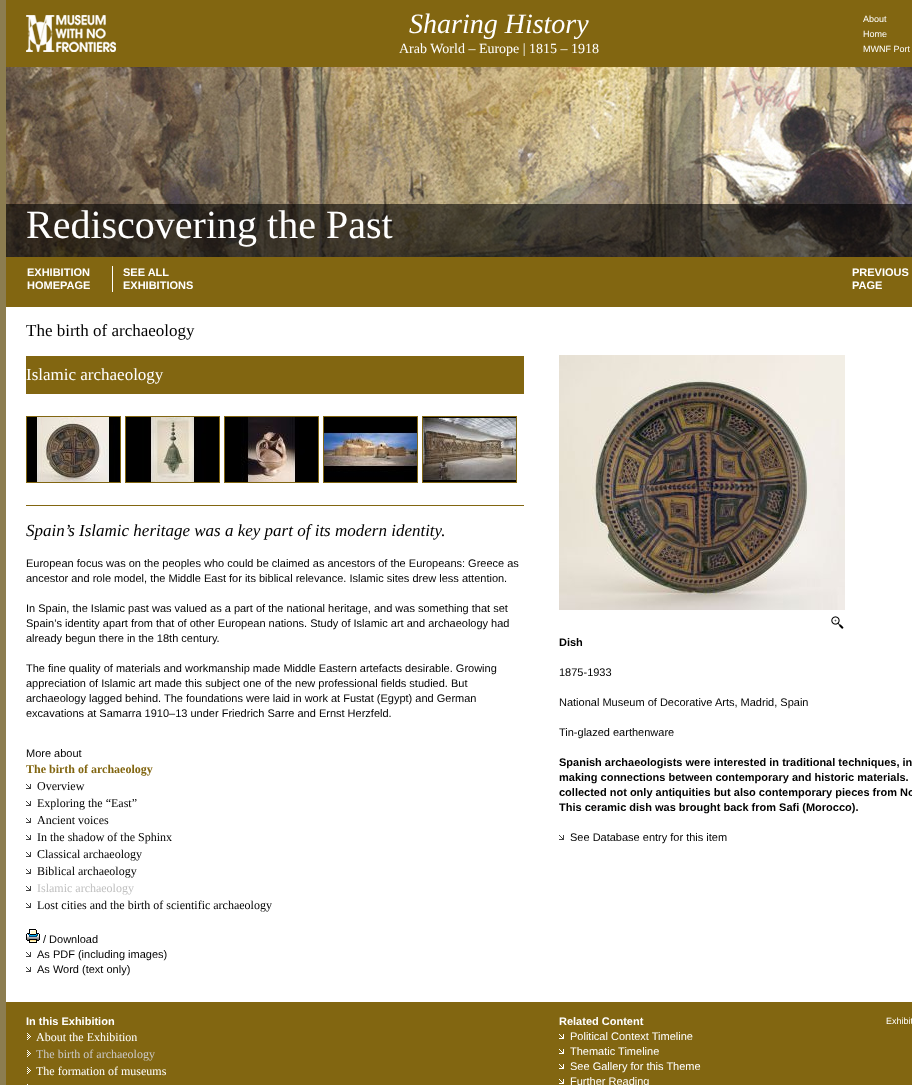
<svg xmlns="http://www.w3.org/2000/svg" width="912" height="1085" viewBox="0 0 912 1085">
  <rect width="100%" height="100%" fill="#8c7d50"/>
  <rect x="6" y="0" width="906" height="67" fill="#826611"/>
  <image x="26" y="15" width="90" height="37" href="img1.png"/>
  <text x="409" y="33" font-family="Liberation Serif" font-size="28" font-style="italic" fill="#ffffff">Sharing History</text>
  <text x="399" y="53" font-family="Liberation Serif" font-size="14" fill="#ffffff">Arab World – Europe | 1815 – 1918</text>
  <text x="863" y="22" font-family="Liberation Sans" font-size="9" fill="#ffffff">About</text>
  <text x="863" y="37" font-family="Liberation Sans" font-size="9" fill="#ffffff">Home</text>
  <text x="863" y="52" font-family="Liberation Sans" font-size="9" fill="#ffffff">MWNF Port</text>
  <rect x="6" y="257" width="906" height="50" fill="#826611"/>
  <image x="6" y="67" width="906" height="190" href="img2.png"/>
  <rect x="6" y="204" width="906" height="53" fill="#000000" fill-opacity="0.59"/>
  <text x="26" y="238" font-family="Liberation Serif" font-size="40" fill="#ffffff">Rediscovering the Past</text>
  <rect x="112" y="266" width="1" height="26" fill="#ffffff"/>
  <text x="27" y="276" font-family="Liberation Sans" font-size="11" font-weight="bold" fill="#ffffff">EXHIBITION</text>
  <text x="27" y="289" font-family="Liberation Sans" font-size="11" font-weight="bold" fill="#ffffff">HOMEPAGE</text>
  <text x="123" y="276" font-family="Liberation Sans" font-size="11" font-weight="bold" fill="#ffffff">SEE ALL</text>
  <text x="123" y="289" font-family="Liberation Sans" font-size="11" font-weight="bold" fill="#ffffff">EXHIBITIONS</text>
  <text x="852" y="276" font-family="Liberation Sans" font-size="11" font-weight="bold" fill="#ffffff">PREVIOUS</text>
  <text x="852" y="289" font-family="Liberation Sans" font-size="11" font-weight="bold" fill="#ffffff">PAGE</text>
  <rect x="6" y="307" width="906" height="695" fill="#ffffff"/>
  <text x="26" y="336" font-family="Liberation Serif" font-size="17" fill="#000000">The birth of archaeology</text>
  <rect x="26" y="356" width="498" height="38" fill="#826611"/>
  <text x="26" y="380" font-family="Liberation Serif" font-size="17" fill="#ffffff">Islamic archaeology</text>
  <rect x="26.5" y="416.5" width="94" height="66" fill="none" stroke="#826611"/>
  <rect x="125.5" y="416.5" width="94" height="66" fill="none" stroke="#826611"/>
  <rect x="224.5" y="416.5" width="94" height="66" fill="none" stroke="#826611"/>
  <rect x="323.5" y="416.5" width="94" height="66" fill="none" stroke="#826611"/>
  <rect x="422.5" y="416.5" width="94" height="66" fill="none" stroke="#826611"/>
  <image x="27" y="417" width="93" height="65" href="img3.png"/>
  <image x="126" y="417" width="93" height="65" href="img4.png"/>
  <image x="225" y="417" width="93" height="65" href="img5.png"/>
  <image x="324" y="417" width="93" height="65" href="img6.png"/>
  <image x="423" y="417" width="93" height="65" href="img7.png"/>
  <rect x="26" y="505" width="498" height="1" fill="#826611"/>
  <text x="26" y="536" font-family="Liberation Serif" font-size="17" font-style="italic" fill="#000000">Spain’s Islamic heritage was a key part of its modern identity.</text>
  <text x="26" y="567" font-family="Liberation Sans" font-size="11" fill="#000000">European focus was on the peoples who could be claimed as ancestors of the Europeans: Greece as</text>
  <text x="26" y="582" font-family="Liberation Sans" font-size="11" fill="#000000">ancestor and role model, the Middle East for its biblical relevance. Islamic sites drew less attention.</text>
  <text x="26" y="612" font-family="Liberation Sans" font-size="11" fill="#000000">In Spain, the Islamic past was valued as a part of the national heritage, and was something that set</text>
  <text x="26" y="627" font-family="Liberation Sans" font-size="11" fill="#000000">Spain’s identity apart from that of other European nations. Study of Islamic art and archaeology had</text>
  <text x="26" y="642" font-family="Liberation Sans" font-size="11" fill="#000000">already begun there in the 18th century.</text>
  <text x="26" y="672" font-family="Liberation Sans" font-size="11" fill="#000000">The fine quality of materials and workmanship made Middle Eastern artefacts desirable. Growing</text>
  <text x="26" y="687" font-family="Liberation Sans" font-size="11" fill="#000000">appreciation of Islamic art made this subject one of the new professional fields studied. But</text>
  <text x="26" y="702" font-family="Liberation Sans" font-size="11" fill="#000000">archaeology lagged behind. The foundations were laid in work at Fustat (Egypt) and German</text>
  <text x="26" y="717" font-family="Liberation Sans" font-size="11" fill="#000000">excavations at Samarra 1910–13 under Friedrich Sarre and Ernst Herzfeld.</text>
  <text x="26" y="757" font-family="Liberation Sans" font-size="11" fill="#000000">More about</text>
  <text x="26" y="773" font-family="Liberation Serif" font-size="12" font-weight="bold" fill="#826611">The birth of archaeology</text>
  <image x="26" y="784" width="5" height="5" href="img8.png"/>
  <text x="37" y="790" font-family="Liberation Serif" font-size="12" fill="#000000">Overview</text>
  <image x="26" y="801" width="5" height="5" href="img8.png"/>
  <text x="37" y="807" font-family="Liberation Serif" font-size="12" fill="#000000">Exploring the “East”</text>
  <image x="26" y="818" width="5" height="5" href="img8.png"/>
  <text x="37" y="824" font-family="Liberation Serif" font-size="12" fill="#000000">Ancient voices</text>
  <image x="26" y="835" width="5" height="5" href="img8.png"/>
  <text x="37" y="841" font-family="Liberation Serif" font-size="12" fill="#000000">In the shadow of the Sphinx</text>
  <image x="26" y="852" width="5" height="5" href="img8.png"/>
  <text x="37" y="858" font-family="Liberation Serif" font-size="12" fill="#000000">Classical archaeology</text>
  <image x="26" y="869" width="5" height="5" href="img8.png"/>
  <text x="37" y="875" font-family="Liberation Serif" font-size="12" fill="#000000">Biblical archaeology</text>
  <image x="26" y="886" width="5" height="5" href="img8.png"/>
  <text x="37" y="892" font-family="Liberation Serif" font-size="12" fill="#c0c0c0">Islamic archaeology</text>
  <image x="26" y="903" width="5" height="5" href="img8.png"/>
  <text x="37" y="909" font-family="Liberation Serif" font-size="12" fill="#000000">Lost cities and the birth of scientific archaeology</text>
  <image x="26" y="929" width="14" height="14" href="img9.png"/>
  <text x="43" y="943" font-family="Liberation Sans" font-size="11" fill="#000000">/ Download</text>
  <image x="26" y="952" width="5" height="5" href="img8.png"/>
  <text x="37" y="958" font-family="Liberation Sans" font-size="11" fill="#000000">As PDF (including images)</text>
  <image x="26" y="967" width="5" height="5" href="img8.png"/>
  <text x="37" y="973" font-family="Liberation Sans" font-size="11" fill="#000000">As Word (text only)</text>
  <image x="559" y="355" width="286" height="255" href="img10.png"/>
  <image x="831" y="616" width="13" height="13" href="img11.png"/>
  <text x="559" y="646" font-family="Liberation Sans" font-size="11" font-weight="bold" fill="#000000">Dish</text>
  <text x="559" y="676" font-family="Liberation Sans" font-size="11" fill="#000000">1875-1933</text>
  <text x="559" y="706" font-family="Liberation Sans" font-size="11" fill="#000000">National Museum of Decorative Arts, Madrid, Spain</text>
  <text x="559" y="736" font-family="Liberation Sans" font-size="11" fill="#000000">Tin-glazed earthenware</text>
  <text x="559" y="766" font-family="Liberation Sans" font-size="11" font-weight="bold" fill="#000000">Spanish archaeologists were interested in traditional techniques, in</text>
  <text x="559" y="781" font-family="Liberation Sans" font-size="11" font-weight="bold" fill="#000000">making connections between contemporary and historic materials.</text>
  <text x="559" y="796" font-family="Liberation Sans" font-size="11" font-weight="bold" fill="#000000">collected not only antiquities but also contemporary pieces from No</text>
  <text x="559" y="811" font-family="Liberation Sans" font-size="11" font-weight="bold" fill="#000000">This ceramic dish was brought back from Safi (Morocco).</text>
  <image x="559" y="835" width="5" height="5" href="img8.png"/>
  <text x="570" y="841" font-family="Liberation Sans" font-size="11" fill="#000000">See Database entry for this item</text>
  <rect x="6" y="1002" width="906" height="83" fill="#826611"/>
  <text x="26" y="1025" font-family="Liberation Sans" font-size="11" font-weight="bold" fill="#ffffff">In this Exhibition</text>
  <image x="27" y="1033" width="4" height="7" href="img12.png"/>
  <text x="36" y="1041" font-family="Liberation Serif" font-size="12" fill="#ffffff">About the Exhibition</text>
  <image x="27" y="1050" width="4" height="7" href="img12.png"/>
  <text x="36" y="1058" font-family="Liberation Serif" font-size="12" fill="#cac8c8">The birth of archaeology</text>
  <image x="27" y="1067" width="4" height="7" href="img12.png"/>
  <text x="36" y="1075" font-family="Liberation Serif" font-size="12" fill="#ffffff">The formation of museums</text>
  <rect x="27" y="1084" width="1" height="1" fill="#ffffff"/>
  <text x="559" y="1025" font-family="Liberation Sans" font-size="11" font-weight="bold" fill="#ffffff">Related Content</text>
  <image x="559" y="1034" width="5" height="5" href="img13.png"/>
  <text x="570" y="1040" font-family="Liberation Sans" font-size="11" fill="#ffffff">Political Context Timeline</text>
  <image x="559" y="1049" width="5" height="5" href="img13.png"/>
  <text x="570" y="1055" font-family="Liberation Sans" font-size="11" fill="#ffffff">Thematic Timeline</text>
  <image x="559" y="1064" width="5" height="5" href="img13.png"/>
  <text x="570" y="1070" font-family="Liberation Sans" font-size="11" fill="#ffffff">See Gallery for this Theme</text>
  <image x="559" y="1079" width="5" height="5" href="img13.png"/>
  <text x="570" y="1085" font-family="Liberation Sans" font-size="11" fill="#ffffff">Further Reading</text>
  <text x="886" y="1024" font-family="Liberation Sans" font-size="9" fill="#ffffff">Exhibit</text>
</svg>
